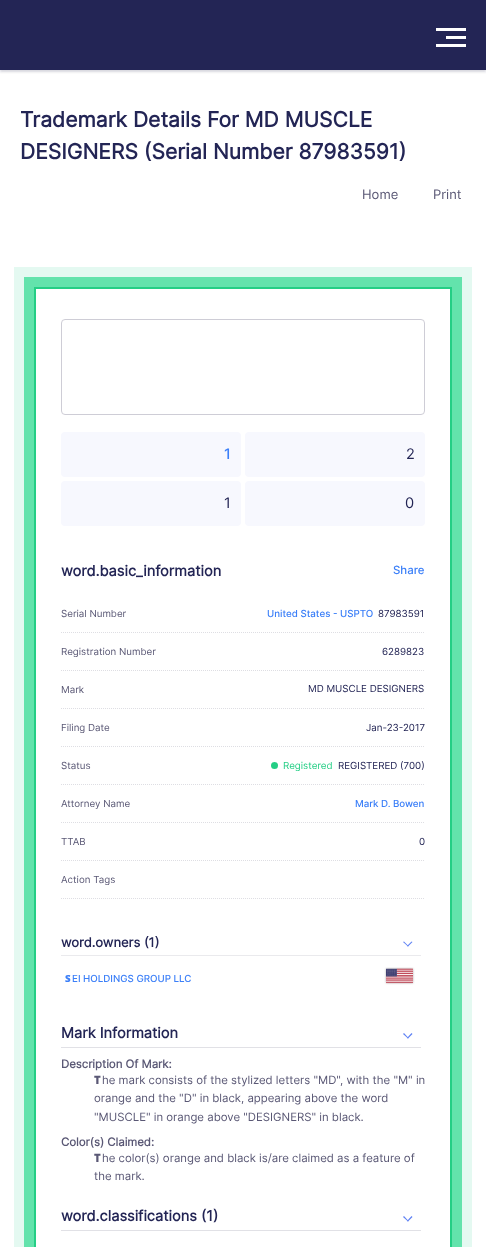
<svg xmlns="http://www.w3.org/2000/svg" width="486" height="1247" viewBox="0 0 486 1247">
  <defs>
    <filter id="blur1" x="-50%" y="-200%" width="200%" height="500%"><feGaussianBlur stdDeviation="1"/></filter>
  </defs>
  <rect width="100%" height="100%" fill="#ffffff"/>
  <rect x="0" y="2" width="486" height="70" fill="#373459" fill-opacity="0.2" filter="url(#blur1)"/>
  <rect x="0" y="0" width="486" height="70" fill="#232555"/>
  <rect x="436" y="28" width="30" height="3" fill="#ffffff"/>
  <rect x="446" y="36" width="20" height="3" fill="#ffffff"/>
  <rect x="436" y="44" width="30" height="3" fill="#ffffff"/>
  <text x="20" y="127" font-family="Inter" font-size="21.1" font-weight="bold" fill="#232555">Trademark Details For MD MUSCLE</text>
  <text x="20" y="159" font-family="Inter" font-size="21.1" font-weight="bold" fill="#232555">DESIGNERS (Serial Number 87983591)</text>
  <path d="M21.5 274.5H464.5V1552.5H21.5Z" fill="none" stroke="#e4f9f1" stroke-width="15"/>
  <text x="362" y="199" font-family="Inter" font-size="13" fill="#5a5875">Home</text>
  <text x="433" y="199" font-family="Inter" font-size="13" fill="#5a5875">Print</text>
  <rect x="29" y="282" width="428" height="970" fill="none" stroke="#63e3ac" stroke-width="10"/>
  <rect x="35" y="288" width="416" height="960" fill="none" stroke="#24ce85" stroke-width="2"/>
  <rect x="61.5" y="319.5" width="363" height="95" rx="3.5" fill="none" stroke="#cecdd6"/>
  <rect x="61" y="432" width="180" height="45" rx="4" fill="#f7f8fe"/>
  <text x="224" y="459" font-family="Inter" font-size="14.6" font-weight="500" fill="#3b7ff8">1</text>
  <rect x="245" y="432" width="180" height="45" rx="4" fill="#f7f8fe"/>
  <text x="406" y="459" font-family="Inter" font-size="14.6" fill="#232555">2</text>
  <rect x="61" y="481" width="180" height="45" rx="4" fill="#f7f8fe"/>
  <text x="224" y="508" font-family="Inter" font-size="14.6" fill="#232555">1</text>
  <rect x="245" y="481" width="180" height="45" rx="4" fill="#f7f8fe"/>
  <text x="405" y="508" font-family="Inter" font-size="14.6" fill="#232555">0</text>
  <text x="61" y="576" font-family="Inter" font-size="14.6" font-weight="bold" fill="#232555">word.basic_information</text>
  <text x="393" y="574" font-family="Inter" font-size="11.4" font-weight="500" fill="#3b7ff8">Share</text>
  <path d="M61 632.5H425" fill="none" stroke="#dedee3" stroke-dasharray="1 1"/>
  <text x="61" y="617" font-family="Inter" font-size="9.75" fill="#5a5875">Serial Number</text>
  <text x="267" y="617" font-family="Inter" font-size="9.75" font-weight="500" fill="#3b7ff8">United States - USPTO</text>
  <text x="378" y="617" font-family="Inter" font-size="9.75" fill="#232555">87983591</text>
  <path d="M61 670.5H425" fill="none" stroke="#dedee3" stroke-dasharray="1 1"/>
  <text x="61" y="655" font-family="Inter" font-size="9.75" fill="#5a5875">Registration Number</text>
  <text x="382" y="655" font-family="Inter" font-size="9.75" fill="#232555">6289823</text>
  <path d="M61 708.5H425" fill="none" stroke="#dedee3" stroke-dasharray="1 1"/>
  <text x="61" y="693" font-family="Inter" font-size="9.75" fill="#5a5875">Mark</text>
  <text x="308" y="692" font-family="Inter" font-size="9.75" fill="#232555">MD MUSCLE DESIGNERS</text>
  <path d="M61 746.5H425" fill="none" stroke="#dedee3" stroke-dasharray="1 1"/>
  <text x="61" y="731" font-family="Inter" font-size="9.75" fill="#5a5875">Filing Date</text>
  <text x="366" y="731" font-family="Inter" font-size="9.75" fill="#232555">Jan-23-2017</text>
  <path d="M61 784.5H425" fill="none" stroke="#dedee3" stroke-dasharray="1 1"/>
  <text x="61" y="769" font-family="Inter" font-size="9.75" fill="#5a5875">Status</text>
  <circle cx="274.5" cy="765.5" r="3.5" fill="#24ce85"/>
  <text x="283" y="769" font-family="Inter" font-size="9.75" fill="#24ce85">Registered</text>
  <text x="338" y="769" font-family="Inter" font-size="9.75" fill="#232555">REGISTERED (700)</text>
  <path d="M61 822.5H425" fill="none" stroke="#dedee3" stroke-dasharray="1 1"/>
  <text x="61" y="807" font-family="Inter" font-size="9.75" fill="#5a5875">Attorney Name</text>
  <text x="355" y="807" font-family="Inter" font-size="9.75" font-weight="500" fill="#3b7ff8">Mark D. Bowen</text>
  <path d="M61 860.5H425" fill="none" stroke="#dedee3" stroke-dasharray="1 1"/>
  <text x="61" y="845" font-family="Inter" font-size="9.75" fill="#5a5875">TTAB</text>
  <text x="419" y="845" font-family="Inter" font-size="9.75" fill="#232555">0</text>
  <path d="M61 898.5H425" fill="none" stroke="#dedee3" stroke-dasharray="1 1"/>
  <text x="61" y="883" font-family="Inter" font-size="9.75" fill="#5a5875">Action Tags</text>
  <rect x="61" y="955" width="360" height="1" fill="#eaeaed"/>
  <text x="61" y="947" font-family="Inter" font-size="13" font-weight="bold" fill="#232555">word.owners (1)</text>
  <path d="M407 946L411.5 941.5L412.5 942L408 946.5Z" fill="#5e81f4"/>
  <path d="M403 942L404 941.5L408.5 946L408 946.5Z" fill="#5e81f4"/>
  <text x="65" y="982" font-family="Noto Sans" font-size="9.75" font-weight="900" fill="#3b7ff8">S</text>
  <text x="72" y="982" font-family="Inter" font-size="9.75" font-weight="500" fill="#3b7ff8">EI HOLDINGS GROUP LLC</text>
  <image x="384" y="967" width="31" height="18" href="img1.png"/>
  <rect x="61" y="1047" width="360" height="1" fill="#e1e1e6"/>
  <text x="61" y="1038" font-family="Inter" font-size="14.6" font-weight="bold" fill="#232555">Mark Information</text>
  <path d="M407 1038L411.5 1033L412.5 1034L408 1038.5Z" fill="#5e81f4"/>
  <path d="M403 1034L404 1033L408.5 1038L408 1038.5Z" fill="#5e81f4"/>
  <text x="61" y="1068" font-family="Inter" font-size="11.4" font-weight="bold" fill="#5a5875">Description Of Mark:</text>
  <text x="94" y="1084" font-family="Noto Sans" font-size="11.4" font-weight="900" fill="#5a5875">T</text>
  <text x="102" y="1084" font-family="Inter" font-size="11.4" fill="#5a5875">he mark consists of the stylized letters "MD", with the "M" in</text>
  <text x="94" y="1102" font-family="Inter" font-size="11.4" fill="#5a5875">orange and the "D" in black, appearing above the word</text>
  <text x="94" y="1121" font-family="Inter" font-size="11.4" fill="#5a5875">"MUSCLE" in orange above "DESIGNERS" in black.</text>
  <text x="61" y="1146" font-family="Inter" font-size="11.4" font-weight="bold" fill="#5a5875">Color(s) Claimed:</text>
  <text x="94" y="1162" font-family="Noto Sans" font-size="11.4" font-weight="900" fill="#5a5875">T</text>
  <text x="102" y="1162" font-family="Inter" font-size="11.4" fill="#5a5875">he color(s) orange and black is/are claimed as a feature of</text>
  <text x="94" y="1180" font-family="Inter" font-size="11.4" fill="#5a5875">the mark.</text>
  <rect x="61" y="1230" width="360" height="1" fill="#e1e1e6"/>
  <text x="61" y="1221" font-family="Inter" font-size="14.6" font-weight="bold" fill="#232555">word.classifications (1)</text>
  <path d="M407 1221L411.5 1216L412.5 1217L408 1221.5Z" fill="#5e81f4"/>
  <path d="M403 1217L404 1216L408.5 1221L408 1221.5Z" fill="#5e81f4"/>
</svg>
